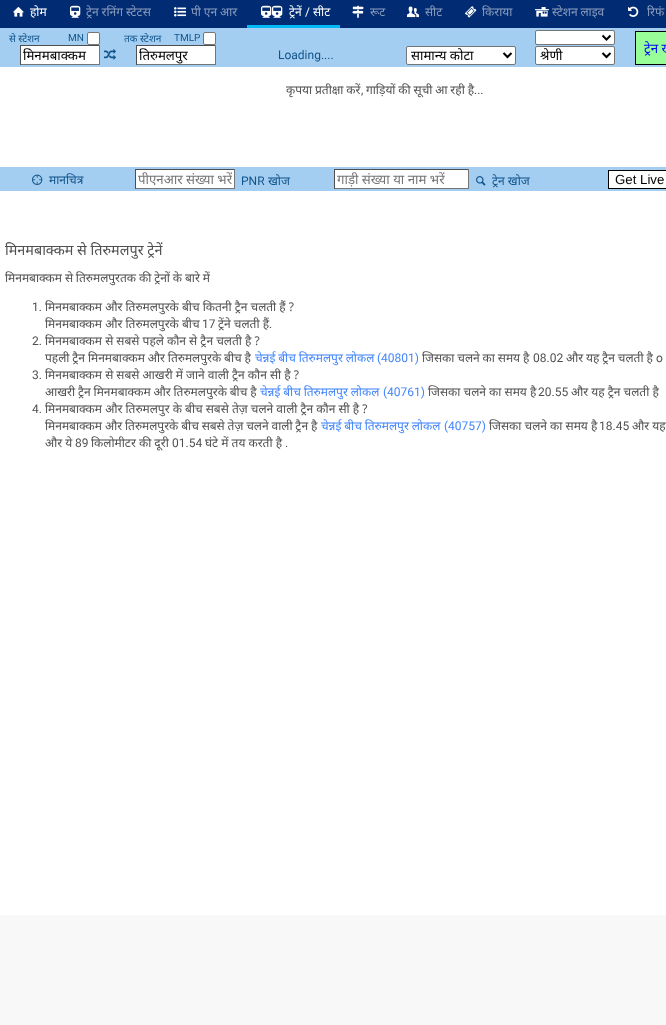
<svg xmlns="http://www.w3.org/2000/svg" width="666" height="1025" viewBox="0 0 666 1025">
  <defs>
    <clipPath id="clip1"><rect x="540" y="47" width="58" height="17"/></clipPath>
    <clipPath id="clip2"><rect x="138" y="170" width="94" height="18"/></clipPath>
  </defs>
  <rect width="100%" height="100%" fill="#012b72"/>
  <image x="13" y="7" width="11" height="10" href="img1.png"/>
  <text x="30" y="16" font-family="Noto Sans" font-size="12" fill="#ffffff">होम</text>
  <image x="70" y="5" width="11" height="13" href="img2.png"/>
  <text x="86" y="16" word-spacing="-0.25" font-family="Noto Sans" font-size="12" fill="#8a9dbe">ट्रेन रनिंग स्टेटस</text>
  <image x="174" y="7" width="12" height="10" href="img3.png"/>
  <text x="191" y="16" word-spacing="-0.25" font-family="Noto Sans" font-size="12" fill="#8a9dbe">पी एन आर</text>
  <rect x="247" y="25" width="93" height="3" fill="#00b9f5"/>
  <image x="261" y="5" width="11" height="13" href="img2.png"/>
  <image x="272" y="5" width="11" height="13" href="img2.png"/>
  <text x="289" y="16" font-family="Noto Sans" font-size="12" fill="#ffffff">ट्रेनें</text>
  <text x="305" y="16" font-family="Roboto" font-size="12" fill="#ffffff">/</text>
  <text x="313" y="16" font-family="Noto Sans" font-size="12" fill="#ffffff">सीट</text>
  <image x="352" y="5" width="12" height="13" href="img4.png"/>
  <text x="370" y="16" font-family="Noto Sans" font-size="12" fill="#8a9dbe">रूट</text>
  <image x="407" y="6" width="12" height="12" href="img5.png"/>
  <text x="425" y="16" font-family="Noto Sans" font-size="12" fill="#8a9dbe">सीट</text>
  <image x="465" y="6" width="12" height="12" href="img6.png"/>
  <text x="482" y="16" font-family="Noto Sans" font-size="12" fill="#8a9dbe">किराया</text>
  <image x="535" y="7" width="14" height="10" href="img7.png"/>
  <text x="552" y="16" word-spacing="-0.25" font-family="Noto Sans" font-size="12" fill="#8a9dbe">स्टेशन लाइव</text>
  <image x="628" y="6" width="11" height="11" href="img8.png"/>
  <text x="647" y="16" font-family="Noto Sans" font-size="12" fill="#8a9dbe">रिफं</text>
  <rect x="0" y="67" width="666" height="848" fill="#ffffff"/>
  <rect x="0" y="28" width="666" height="39" fill="#a4cef1"/>
  <text x="9" y="42" font-family="Noto Sans" font-size="10" fill="#11548b">से स्टेशन</text>
  <text x="68" y="41" font-family="Roboto" font-size="10" fill="#11548b">MN</text>
  <rect x="87.5" y="32.5" width="12" height="12" rx="1.5" fill="#ffffff" stroke="#767676"/>
  <text x="124" y="42" font-family="Noto Sans" font-size="10" fill="#11548b">तक स्टेशन</text>
  <text x="174" y="41" font-family="Roboto" font-size="10" fill="#11548b">TMLP</text>
  <rect x="203.5" y="32.5" width="12" height="12" rx="1.5" fill="#ffffff" stroke="#767676"/>
  <rect x="535.5" y="30.5" width="79" height="14" rx="1.5" fill="#ffffff" stroke="#767676"/>
  <path d="M602.5 35.5L606.5 39.5L610.5 35.5" fill="none" stroke="#000000" stroke-width="2"/>
  <rect x="635.5" y="31.5" width="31" height="33" fill="#98ff98" stroke="#000000"/>
  <text x="644" y="53" font-family="Noto Sans" font-size="13.25" fill="#0000ff">ट्रेन ख</text>
  <rect x="21" y="46" width="78" height="18" fill="#ffffff"/>
  <rect x="20" y="45" width="80" height="1" fill="#4f4f4f"/>
  <rect x="99" y="45" width="1" height="20" fill="#767676"/>
  <rect x="20" y="64" width="80" height="1" fill="#767676"/>
  <rect x="20" y="45" width="1" height="20" fill="#4f4f4f"/>
  <text x="23" y="60" font-family="Noto Sans" font-size="13.25" fill="#000000">मिनमबाक्कम</text>
  <image x="104" y="49" width="12" height="11" href="img9.png"/>
  <rect x="137" y="46" width="78" height="18" fill="#ffffff"/>
  <rect x="136" y="45" width="80" height="1" fill="#4f4f4f"/>
  <rect x="215" y="45" width="1" height="20" fill="#767676"/>
  <rect x="136" y="64" width="80" height="1" fill="#767676"/>
  <rect x="136" y="45" width="1" height="20" fill="#4f4f4f"/>
  <text x="139" y="60" font-family="Noto Sans" font-size="13.25" fill="#000000">तिरुमलपुर</text>
  <text x="278" y="59" font-family="Roboto" font-size="12" fill="#11548b">Loading....</text>
  <rect x="406.5" y="46.5" width="109" height="18" rx="1.5" fill="#ffffff" stroke="#767676"/>
  <path d="M503.5 53L507.5 57L511.5 53" fill="none" stroke="#000000" stroke-width="2"/>
  <text x="411" y="60" font-family="Noto Sans" font-size="13.25" fill="#000000">सामान्य कोटा</text>
  <rect x="535.5" y="46.5" width="79" height="18" rx="1.5" fill="#ffffff" stroke="#767676"/>
  <path d="M602.5 53L606.5 57L610.5 53" fill="none" stroke="#000000" stroke-width="2"/>
  <g clip-path="url(#clip1)">
    <text x="540" y="60" font-family="Noto Sans" font-size="13.25" fill="#000000">श्रेणी</text>
  </g>
  <text x="286" y="94" word-spacing="-0.25" font-family="Noto Sans" font-size="12" fill="#505050">कृपया प्रतीक्षा करें</text>
  <text x="361" y="94" font-family="Roboto" font-size="12" fill="#505050">,</text>
  <text x="366" y="94" word-spacing="-0.25" font-family="Noto Sans" font-size="12" fill="#505050">गाड़ियों की सूची आ रही है</text>
  <text x="474" y="94" font-family="Roboto" font-size="12" fill="#505050">...</text>
  <rect x="0" y="167" width="666" height="24" fill="#a4cef1"/>
  <image x="32" y="174" width="11" height="11" href="img10.png"/>
  <text x="49" y="184" font-family="Noto Sans" font-size="12" fill="#11548b">मानचित्र</text>
  <rect x="136" y="170" width="98" height="18" fill="#ffffff"/>
  <rect x="135" y="169" width="100" height="1" fill="#4f4f4f"/>
  <rect x="234" y="169" width="1" height="20" fill="#767676"/>
  <rect x="135" y="188" width="100" height="1" fill="#767676"/>
  <rect x="135" y="169" width="1" height="20" fill="#4f4f4f"/>
  <g clip-path="url(#clip2)">
    <text x="138" y="184" font-family="Noto Sans" font-size="13.25" fill="#757575">पीएनआर संख्या भरें</text>
  </g>
  <text x="241" y="185" font-family="Roboto" font-size="12" fill="#11548b">PNR</text>
  <text x="268" y="185" font-family="Noto Sans" font-size="12" fill="#11548b">खोज</text>
  <rect x="335" y="170" width="133" height="18" fill="#ffffff"/>
  <rect x="334" y="169" width="135" height="1" fill="#4f4f4f"/>
  <rect x="468" y="169" width="1" height="20" fill="#767676"/>
  <rect x="334" y="188" width="135" height="1" fill="#767676"/>
  <rect x="334" y="169" width="1" height="20" fill="#4f4f4f"/>
  <text x="337" y="184" font-family="Noto Sans" font-size="13.25" fill="#757575">गाड़ी संख्या या नाम भरें</text>
  <image x="476" y="176" width="10" height="10" href="img11.png"/>
  <text x="492" y="185" font-family="Noto Sans" font-size="12" fill="#11548b">ट्रेन खोज</text>
  <rect x="608.5" y="170.5" width="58" height="18" fill="#ffffff" stroke="#000000"/>
  <text x="615" y="184" font-family="Liberation Sans" font-size="13.25" fill="#000000">Get Live</text>
  <text x="5" y="255" font-family="Noto Sans" font-size="14.4" fill="#505050">मिनमबाक्कम से तिरुमलपुर ट्रेनें</text>
  <text x="5" y="282" word-spacing="-0.25" font-family="Noto Sans" font-size="12" fill="#505050">मिनमबाक्कम से तिरुमलपुरतक की ट्रेनों के बारे में</text>
  <text x="32" y="311" font-family="Roboto" font-size="12" fill="#505050">1.</text>
  <text x="45" y="311" font-family="Noto Sans" font-size="12" fill="#505050">मिनमबाक्कम और तिरुमलपुरके बीच कितनी ट्रैन चलती हैं ?</text>
  <text x="45" y="328" font-family="Noto Sans" font-size="12" fill="#505050">मिनमबाक्कम और तिरुमलपुरके बीच</text>
  <text x="202" y="328" font-family="Roboto" font-size="12" fill="#505050">17</text>
  <text x="218" y="328" font-family="Noto Sans" font-size="12" fill="#505050">ट्रेंने चलती हैं</text>
  <text x="269" y="328" font-family="Roboto" font-size="12" fill="#505050">.</text>
  <text x="32" y="345" font-family="Roboto" font-size="12" fill="#505050">2.</text>
  <text x="45" y="345" font-family="Noto Sans" font-size="12" fill="#505050">मिनमबाक्कम से सबसे पहले कौन से ट्रैन चलती है ?</text>
  <text x="45" y="362" word-spacing="-0.25" font-family="Noto Sans" font-size="12" fill="#505050">पहली ट्रैन मिनमबाक्कम और तिरुमलपुरके बीच है</text>
  <text x="255" y="362" word-spacing="-0.25" font-family="Noto Sans" font-size="12" fill="#4285fc">चेन्नई बीच तिरुमलपुर लोकल</text>
  <text x="377" y="362" font-family="Roboto" font-size="12" fill="#4285fc">(40801)</text>
  <text x="422" y="362" word-spacing="-0.25" font-family="Noto Sans" font-size="12" fill="#505050">जिसका चलने का समय है</text>
  <text x="533" y="362" font-family="Roboto" font-size="12" fill="#505050">08.02</text>
  <text x="566" y="362" word-spacing="-0.25" font-family="Noto Sans" font-size="12" fill="#505050">और यह ट्रैन चलती है</text>
  <text x="656" y="362" font-family="Roboto" font-size="12" fill="#505050">o</text>
  <text x="32" y="379" font-family="Roboto" font-size="12" fill="#505050">3.</text>
  <text x="45" y="379" font-family="Noto Sans" font-size="12" fill="#505050">मिनमबाक्कम से सबसे आखरी में जाने वाली ट्रैन कौन सी है ?</text>
  <text x="45" y="396" word-spacing="-0.25" font-family="Noto Sans" font-size="12" fill="#505050">आखरी ट्रैन मिनमबाक्कम और तिरुमलपुरके बीच है</text>
  <text x="260" y="396" word-spacing="-0.25" font-family="Noto Sans" font-size="12" fill="#4285fc">चेन्नई बीच तिरुमलपुर लोकल</text>
  <text x="383" y="396" font-family="Roboto" font-size="12" fill="#4285fc">(40761)</text>
  <text x="428" y="396" font-family="Noto Sans" font-size="12" fill="#505050">जिसका चलने का समय है</text>
  <text x="538" y="396" font-family="Roboto" font-size="12" fill="#505050">20.55</text>
  <text x="571" y="396" font-family="Noto Sans" font-size="12" fill="#505050">और यह ट्रैन चलती है</text>
  <text x="32" y="413" font-family="Roboto" font-size="12" fill="#505050">4.</text>
  <text x="45" y="413" font-family="Noto Sans" font-size="12" fill="#505050">मिनमबाक्कम और तिरुमलपुर के बीच सबसे तेज़ चलने वाली ट्रैन कौन सी है ?</text>
  <text x="45" y="430" word-spacing="-0.25" font-family="Noto Sans" font-size="12" fill="#505050">मिनमबाक्कम और तिरुमलपुरके बीच सबसे तेज़ चलने वाली ट्रैन है</text>
  <text x="321" y="430" word-spacing="-0.25" font-family="Noto Sans" font-size="12" fill="#4285fc">चेन्नई बीच तिरुमलपुर लोकल</text>
  <text x="444" y="430" font-family="Roboto" font-size="12" fill="#4285fc">(40757)</text>
  <text x="489" y="430" font-family="Noto Sans" font-size="12" fill="#505050">जिसका चलने का समय है</text>
  <text x="599" y="430" font-family="Roboto" font-size="12" fill="#505050">18.45</text>
  <text x="632" y="430" font-family="Noto Sans" font-size="12" fill="#505050">और यह</text>
  <text x="45" y="447" font-family="Noto Sans" font-size="12" fill="#505050">और ये</text>
  <text x="75" y="447" font-family="Roboto" font-size="12" fill="#505050">89</text>
  <text x="91" y="447" font-family="Noto Sans" font-size="12" fill="#505050">किलोमीटर की दूरी</text>
  <text x="172" y="447" font-family="Roboto" font-size="12" fill="#505050">01.54</text>
  <text x="205" y="447" font-family="Noto Sans" font-size="12" fill="#505050">घंटे में तय करती है</text>
  <text x="285" y="447" font-family="Roboto" font-size="12" fill="#505050">.</text>
  <rect x="0" y="915" width="666" height="110" fill="#f8f8f8"/>
</svg>
